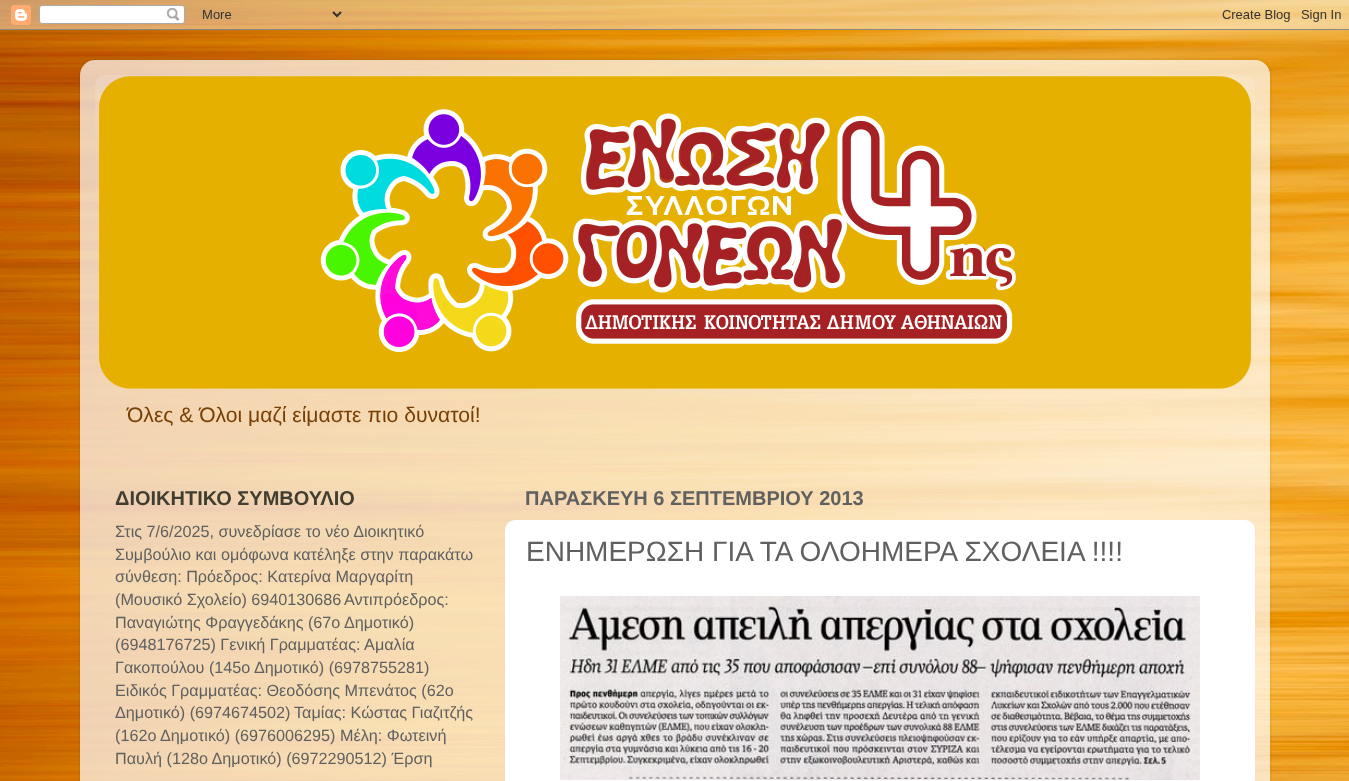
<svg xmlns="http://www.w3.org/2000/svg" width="1349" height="781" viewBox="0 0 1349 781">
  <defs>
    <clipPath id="clip1"><path d="M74 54H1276V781H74ZM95 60H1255C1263.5 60 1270 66.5 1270 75V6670C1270 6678.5 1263.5 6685 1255 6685H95C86.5 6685 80 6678.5 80 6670V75C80 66.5 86.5 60 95 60Z" clip-rule="evenodd"/></clipPath>
    <filter id="blur1" x="-50%" y="-200%" width="200%" height="500%"><feGaussianBlur stdDeviation="1.5"/></filter>
  </defs>
  <rect width="100%" height="100%" fill="#ffffff"/>
  <image x="0" y="0" width="1349" height="781" href="img1.png"/>
  <image x="0" y="0" width="1349" height="30" href="img2.png"/>
  <g clip-path="url(#clip1)">
    <rect x="80" y="60" width="1190" height="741" rx="15" fill="#000000" fill-opacity="0.15" filter="url(#blur1)"/>
  </g>
  <image x="80" y="60" width="1190" height="721" href="img3.png"/>
  <image x="95" y="75" width="1160" height="63" href="img4.png"/>
  <image x="99" y="76" width="1152" height="313" href="img5.png"/>
  <text x="127" y="422" font-family="Liberation Sans" font-size="21.1" fill="#783f04">Όλες &amp; Όλοι μαζί είμαστε πιο δυνατοί!</text>
  <text x="115" y="505" font-family="Liberation Sans" font-size="20" font-weight="bold" fill="#413e31">ΔΙΟΙΚΗΤΙΚΟ ΣΥΜΒΟΥΛΙΟ</text>
  <text x="115" y="537" font-family="Liberation Sans" font-size="16.2" fill="#606060">Στις 7/6/2025, συνεδρίασε το νέο Διοικητικό</text>
  <text x="115" y="560" font-family="Liberation Sans" font-size="16.2" fill="#606060">Συμβούλιο και ομόφωνα κατέληξε στην παρακάτω</text>
  <text x="115" y="582" font-family="Liberation Sans" font-size="16.2" fill="#606060">σύνθεση: Πρόεδρος: Κατερίνα Μαργαρίτη</text>
  <text x="115" y="605" font-family="Liberation Sans" font-size="16.2" fill="#606060">(Μουσικό Σχολείο) 6940130686</text>
  <text x="344" y="605" font-family="Liberation Sans" font-size="16.2" fill="#606060">Αντιπρόεδρος:</text>
  <text x="115" y="628" font-family="Liberation Sans" font-size="16.2" fill="#606060">Παναγιώτης Φραγγεδάκης (67ο Δημοτικό)</text>
  <text x="115" y="650" font-family="Liberation Sans" font-size="16.2" fill="#606060">(6948176725) Γενική Γραμματέας: Αμαλία</text>
  <text x="115" y="673" font-family="Liberation Sans" font-size="16.2" fill="#606060">Γακοπούλου (145ο Δημοτικό) (6978755281)</text>
  <text x="115" y="696" font-family="Liberation Sans" font-size="16.2" fill="#606060">Ειδικός Γραμματέας: Θεοδόσης Μπενάτος (62ο</text>
  <text x="115" y="718" font-family="Liberation Sans" font-size="16.2" fill="#606060">Δημοτικό) (6974674502)</text>
  <text x="294" y="718" font-family="Liberation Sans" font-size="16.2" fill="#606060">Ταμίας: Κώστας Γιαζιτζής</text>
  <text x="115" y="741" font-family="Liberation Sans" font-size="16.2" fill="#606060">(162ο Δημοτικό) (6976006295) Μέλη: Φωτεινή</text>
  <text x="115" y="764" font-family="Liberation Sans" font-size="16.2" fill="#606060">Παυλή (128ο Δημοτικό) (6972290512) Έρση</text>
  <text x="525" y="505" font-family="Liberation Sans" font-size="20" font-weight="bold" fill="#606060">ΠΑΡΑΣΚΕΥΗ 6 ΣΕΠΤΕΜΒΡΙΟΥ 2013</text>
  <rect x="505" y="520" width="750" height="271" rx="10" fill="#ffffff"/>
  <text x="526" y="561" font-family="Liberation Sans" font-size="28" fill="#606060">ΕΝΗΜΕΡΩΣΗ ΓΙΑ ΤΑ ΟΛΟΗΜΕΡΑ ΣΧΟΛΕΙΑ !!!!</text>
  <image x="560" y="596" width="640" height="184" href="img6.png"/>
</svg>
